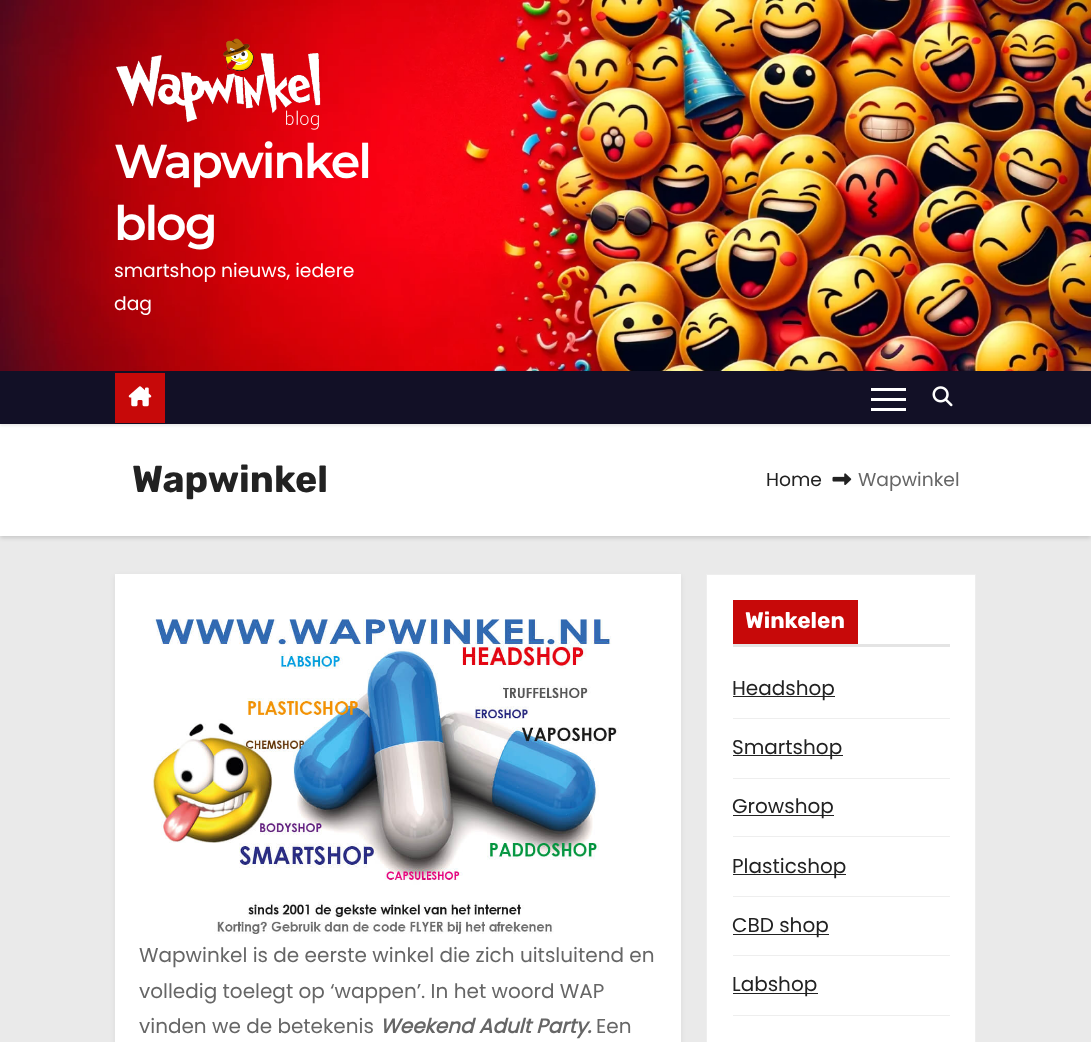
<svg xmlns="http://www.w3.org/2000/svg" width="1091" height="1042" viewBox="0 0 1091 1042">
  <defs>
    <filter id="blur1" x="-50%" y="-200%" width="200%" height="500%"><feGaussianBlur stdDeviation="2"/></filter>
    <filter id="blur2" x="-50%" y="-200%" width="200%" height="500%"><feGaussianBlur stdDeviation="1"/></filter>
    <filter id="blur3" x="-50%" y="-200%" width="200%" height="500%"><feGaussianBlur stdDeviation="2.5"/></filter>
  </defs>
  <rect width="100%" height="100%" fill="#eaeaea"/>
  <image x="0" y="0" width="1091" height="371" href="img1.png"/>
  <image x="116" y="38" width="205" height="92" href="img2.png"/>
  <text x="114" y="178" font-family="Montserrat" font-size="47.5" font-weight="600" letter-spacing="-2.1" fill="#ffffff">Wapwinkel</text>
  <text x="114" y="240" font-family="Montserrat" font-size="47.5" font-weight="600" letter-spacing="-2.1" fill="#ffffff">blog</text>
  <text x="114" y="277" font-family="Poppins" font-size="18.75" fill="#ffffff">smartshop nieuws, iedere</text>
  <text x="114" y="310" font-family="Poppins" font-size="18.75" fill="#ffffff">dag</text>
  <rect x="0" y="425" width="1091" height="113" fill="#000000" fill-opacity="0.15" filter="url(#blur1)"/>
  <rect x="0" y="424" width="1091" height="112" fill="#ffffff"/>
  <rect x="0" y="374" width="1091" height="52" fill="#000000" fill-opacity="0.08" filter="url(#blur2)"/>
  <rect x="0" y="371" width="1091" height="53" fill="#121026"/>
  <rect x="115" y="373" width="50" height="50" fill="#c70909"/>
  <image x="128" y="386" width="24" height="21" href="img3.png"/>
  <rect x="871" y="388" width="35" height="3" fill="#ffffff"/>
  <rect x="871" y="398" width="35" height="3" fill="#ffffff"/>
  <rect x="871" y="408" width="35" height="3" fill="#ffffff"/>
  <image x="932" y="386" width="21" height="21" href="img4.png"/>
  <text x="132" y="492" font-family="Rubik" font-size="37.5" font-weight="bold" fill="#222222">Wapwinkel</text>
  <text x="766" y="486" font-family="Poppins" font-size="18.75" fill="#222222">Home</text>
  <image x="832" y="473" width="20" height="12" href="img5.png"/>
  <text x="858" y="486" font-family="Poppins" font-size="18.75" fill="#666666">Wapwinkel</text>
  <rect x="115" y="576" width="566" height="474" fill="#000000" fill-opacity="0.08" filter="url(#blur3)"/>
  <rect x="115" y="574" width="566" height="468" fill="#ffffff"/>
  <image x="152" y="619" width="467" height="315" href="img6.png"/>
  <text x="139" y="962" font-family="Poppins" font-size="20" fill="#666666">Wapwinkel is de eerste winkel die zich uitsluitend en</text>
  <text x="139" y="998" font-family="Poppins" font-size="20" fill="#666666">volledig toelegt op ‘wappen’. In het woord WAP</text>
  <text x="139" y="1033" font-family="Poppins" font-size="20" fill="#666666">vinden we de betekenis</text>
  <text x="380" y="1033" font-family="Poppins" font-size="20" font-weight="bold" font-style="italic" fill="#666666">Weekend Adult Party.</text>
  <text x="596" y="1033" font-family="Poppins" font-size="20" fill="#666666">Een</text>
  <rect x="706.5" y="574.5" width="269" height="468" fill="#ffffff" stroke="#eeeeee"/>
  <rect x="733" y="644" width="217" height="3" fill="#e4e4e4"/>
  <rect x="733" y="600" width="125" height="44" fill="#c70909"/>
  <text x="745" y="628" font-family="Rubik" font-size="22.5" font-weight="bold" fill="#ffffff">Winkelen</text>
  <rect x="733" y="718" width="217" height="1" fill="#eeeeee"/>
  <rect x="733" y="696" width="102" height="1" fill="#222222"/>
  <text x="732" y="695" font-family="Poppins" font-size="20" fill="#222222">Headshop</text>
  <rect x="733" y="778" width="217" height="1" fill="#eeeeee"/>
  <rect x="733" y="755" width="110" height="1" fill="#222222"/>
  <text x="732" y="754" font-family="Poppins" font-size="20" fill="#222222">Smartshop</text>
  <rect x="733" y="836" width="217" height="1" fill="#eeeeee"/>
  <rect x="733" y="815" width="101" height="1" fill="#222222"/>
  <text x="732" y="813" font-family="Poppins" font-size="20" fill="#222222">Growshop</text>
  <rect x="733" y="896" width="217" height="1" fill="#eeeeee"/>
  <rect x="733" y="874" width="113" height="1" fill="#222222"/>
  <text x="732" y="873" font-family="Poppins" font-size="20" fill="#222222">Plasticshop</text>
  <rect x="733" y="955" width="217" height="1" fill="#eeeeee"/>
  <rect x="733" y="934" width="96" height="1" fill="#222222"/>
  <text x="732" y="932" font-family="Poppins" font-size="20" fill="#222222">CBD shop</text>
  <rect x="733" y="1015" width="217" height="1" fill="#eeeeee"/>
  <rect x="733" y="993" width="85" height="1" fill="#222222"/>
  <text x="732" y="991" font-family="Poppins" font-size="20" fill="#222222">Labshop</text>
</svg>
